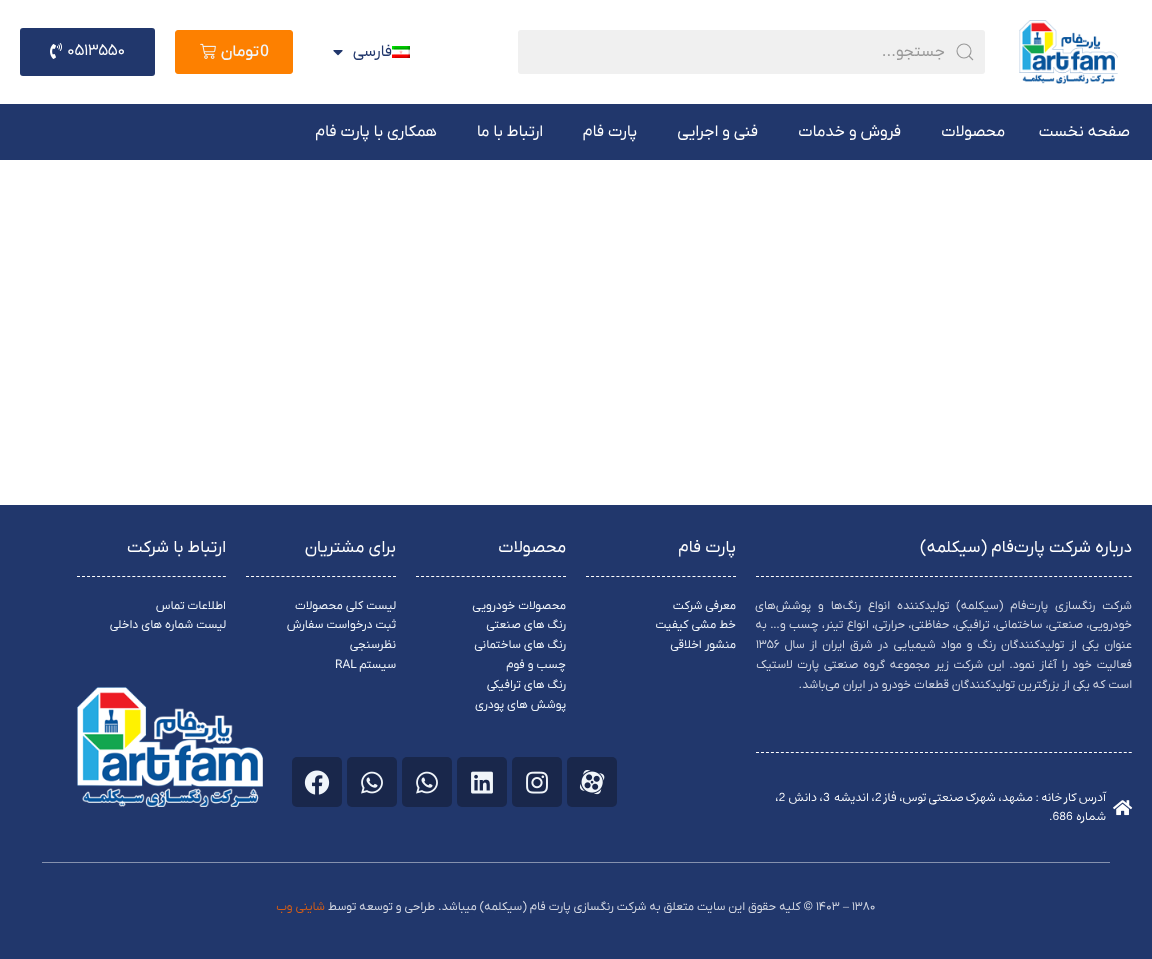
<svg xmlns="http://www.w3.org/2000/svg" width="1152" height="959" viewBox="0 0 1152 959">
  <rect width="100%" height="100%" fill="#ffffff"/>
  <image x="1019" y="20" width="99" height="64" href="img1.png"/>
  <rect x="518" y="30" width="467" height="44" rx="3" fill="#f0f0f0"/>
  <circle cx="964" cy="51" r="7" fill="none" stroke="#999999" stroke-width="1.1"/>
  <path d="M969 56L973 60Z" fill="none" stroke="#999999" stroke-width="1.1"/>
  <text x="945" y="56" font-family="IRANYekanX" font-size="16" direction="rtl" fill="#999999">جستجو...</text>
  <image x="392" y="46" width="18" height="12" href="img2.png"/>
  <text x="392" y="56" font-family="IRANYekanX" font-size="16" direction="rtl" fill="#21376c">فارسی</text>
  <image x="333" y="50" width="10" height="6" href="img3.png"/>
  <rect x="175.5" y="30.5" width="117" height="43" rx="2.5" fill="#fd8000" stroke="#fd8000"/>
  <text x="260" y="56" font-family="IRANYekanX" font-size="16" font-weight="500" fill="#f0f5fa">0</text>
  <text x="259" y="56" font-family="IRANYekanX" font-size="16" font-weight="500" direction="rtl" fill="#f0f5fa">تومان</text>
  <image x="200" y="43" width="16" height="16" href="img4.png"/>
  <rect x="20" y="28" width="135" height="48" rx="3" fill="#21376c"/>
  <text x="67" y="55" font-family="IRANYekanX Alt" font-size="16" fill="#ffffff">0513550</text>
  <image x="50" y="43" width="12" height="16" href="img5.png"/>
  <rect x="0" y="104" width="1152" height="56" fill="#21376c"/>
  <text x="1130" y="136" font-family="IRANYekanX" font-size="16" direction="rtl" fill="#ffffff">صفحه نخست</text>
  <text x="1005" y="136" font-family="IRANYekanX" font-size="16" direction="rtl" fill="#ffffff">محصولات</text>
  <text x="901" y="136" font-family="IRANYekanX" font-size="16" direction="rtl" fill="#ffffff">فروش و خدمات</text>
  <text x="758" y="136" font-family="IRANYekanX" font-size="16" direction="rtl" fill="#ffffff">فنی و اجرایی</text>
  <text x="637" y="136" font-family="IRANYekanX" font-size="16" direction="rtl" fill="#ffffff">پارت فام</text>
  <text x="543" y="136" font-family="IRANYekanX" font-size="16" direction="rtl" fill="#ffffff">ارتباط با ما</text>
  <text x="437" y="136" font-family="IRANYekanX" font-size="16" direction="rtl" fill="#ffffff">همکاری با پارت فام</text>
  <rect x="0" y="505" width="1152" height="454" fill="#21376c"/>
  <text x="1132" y="552" font-family="IRANYekanX" font-size="17" direction="rtl" fill="#ffffff">درباره شرکت پارت‌فام (سیکلمه)</text>
  <path d="M756 576.5H1132" fill="none" stroke="#ffffff" stroke-dasharray="3 1.97"/>
  <text x="1132" y="609" word-spacing="4" font-family="IRANYekanX" font-size="12" direction="rtl" fill="#d3d7e2">شرکت رنگسازی پارت‌فام (سیکلمه) تولیدکننده انواع رنگ‌ها و پوشش‌های</text>
  <text x="1132" y="628" word-spacing="0.4" font-family="IRANYekanX" font-size="12" direction="rtl" fill="#d3d7e2">خودرویی، صنعتی، ساختمانی، ترافیکی، حفاظتی، حرارتی، انواع تینر، چسب و… به</text>
  <text x="1132" y="648" word-spacing="2.1" font-family="IRANYekanX" font-size="12" direction="rtl" fill="#d3d7e2">عنوان یکی از تولیدکنندگان رنگ و مواد شیمیایی در شرق ایران از سال</text>
  <text x="756" y="648" font-family="IRANYekanX Alt" font-size="12" fill="#d3d7e2">1356</text>
  <text x="1132" y="668" word-spacing="1.75" font-family="IRANYekanX" font-size="12" direction="rtl" fill="#d3d7e2">فعالیت خود را آغاز نمود. این شرکت زیر مجموعه گروه صنعتی پارت لاستیک</text>
  <text x="1132" y="688" font-family="IRANYekanX" font-size="12" direction="rtl" fill="#d3d7e2">است که یکی از بزرگترین تولیدکنندگان قطعات خودرو در ایران می‌باشد.</text>
  <path d="M756 752.5H1132" fill="none" stroke="#ffffff" stroke-dasharray="3 1.97"/>
  <image x="1113" y="800" width="20" height="16" href="img6.png"/>
  <text x="1106" y="801" font-family="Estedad" font-size="12" direction="rtl" fill="#ffffff">آدرس کار خانه : مشهد، شهرک صنعتی توس، فاز</text>
  <text x="875" y="801" font-family="Estedad" font-size="12" fill="#ffffff">2</text>
  <text x="875" y="801" font-family="Estedad" font-size="12" direction="rtl" fill="#ffffff">، اندیشه</text>
  <text x="823" y="801" font-family="Estedad" font-size="12" fill="#ffffff">3</text>
  <text x="823" y="801" font-family="Estedad" font-size="12" direction="rtl" fill="#ffffff">، دانش</text>
  <text x="775" y="801" font-family="Estedad" font-size="12" fill="#ffffff">،2</text>
  <text x="1106" y="820" font-family="Estedad" font-size="12" direction="rtl" fill="#ffffff">شماره</text>
  <text x="1049" y="820" font-family="Estedad" font-size="12" fill="#ffffff">.686</text>
  <text x="736" y="552" font-family="IRANYekanX" font-size="17" direction="rtl" fill="#ffffff">پارت فام</text>
  <path d="M586 576.5H736" fill="none" stroke="#ffffff" stroke-dasharray="3 2.07"/>
  <text x="736" y="609" font-family="IRANYekanX" font-size="12" direction="rtl" fill="#f0f5fa">معرفی شرکت</text>
  <text x="736" y="628" font-family="IRANYekanX" font-size="12" direction="rtl" fill="#f0f5fa">خط مشی کیفیت</text>
  <text x="736" y="648" font-family="IRANYekanX" font-size="12" direction="rtl" fill="#f0f5fa">منشور اخلاقی</text>
  <text x="566" y="552" font-family="IRANYekanX" font-size="17" direction="rtl" fill="#ffffff">محصولات</text>
  <path d="M416 576.5H566" fill="none" stroke="#ffffff" stroke-dasharray="3 2.07"/>
  <text x="566" y="609" font-family="IRANYekanX" font-size="12" direction="rtl" fill="#f0f5fa">محصولات خودرویی</text>
  <text x="566" y="628" font-family="IRANYekanX" font-size="12" direction="rtl" fill="#f0f5fa">رنگ های صنعتی</text>
  <text x="566" y="648" font-family="IRANYekanX" font-size="12" direction="rtl" fill="#f0f5fa">رنگ های ساختمانی</text>
  <text x="566" y="668" font-family="IRANYekanX" font-size="12" direction="rtl" fill="#f0f5fa">چسب و فوم</text>
  <text x="566" y="688" font-family="IRANYekanX" font-size="12" direction="rtl" fill="#f0f5fa">رنگ های ترافیکی</text>
  <text x="566" y="708" font-family="IRANYekanX" font-size="12" direction="rtl" fill="#f0f5fa">پوشش های پودری</text>
  <text x="396" y="552" font-family="IRANYekanX" font-size="17" direction="rtl" fill="#ffffff">برای مشتریان</text>
  <path d="M246 576.5H396" fill="none" stroke="#ffffff" stroke-dasharray="3 2.07"/>
  <text x="396" y="609" font-family="IRANYekanX" font-size="12" direction="rtl" fill="#f0f5fa">لیست کلی محصولات</text>
  <text x="396" y="628" font-family="IRANYekanX" font-size="12" direction="rtl" fill="#f0f5fa">ثبت درخواست سفارش</text>
  <text x="396" y="648" font-family="IRANYekanX" font-size="12" direction="rtl" fill="#f0f5fa">نظرسنجی</text>
  <text x="396" y="668" font-family="IRANYekanX" font-size="12" direction="rtl" fill="#f0f5fa">سیستم</text>
  <text x="335" y="668" font-family="IRANYekanX" font-size="12" fill="#f0f5fa">RAL</text>
  <text x="226" y="552" font-family="IRANYekanX" font-size="17" direction="rtl" fill="#ffffff">ارتباط با شرکت</text>
  <path d="M77 576.5H226" fill="none" stroke="#ffffff" stroke-dasharray="3 2.03"/>
  <text x="226" y="609" font-family="IRANYekanX" font-size="12" direction="rtl" fill="#f0f5fa">اطلاعات تماس</text>
  <text x="226" y="628" font-family="IRANYekanX" font-size="12" direction="rtl" fill="#f0f5fa">لیست شماره های داخلی</text>
  <rect x="567" y="757" width="50" height="50" rx="5" fill="#19274b"/>
  <image x="579" y="770" width="26" height="25" href="img7.png"/>
  <rect x="512" y="757" width="50" height="50" rx="5" fill="#19274b"/>
  <image x="526" y="771" width="22" height="23" href="img8.png"/>
  <rect x="457" y="757" width="50" height="50" rx="5" fill="#19274b"/>
  <image x="471" y="771" width="22" height="23" href="img9.png"/>
  <rect x="402" y="757" width="50" height="50" rx="5" fill="#19274b"/>
  <image x="416" y="771" width="22" height="23" href="img10.png"/>
  <rect x="347" y="757" width="50" height="50" rx="5" fill="#19274b"/>
  <image x="361" y="771" width="22" height="23" href="img10.png"/>
  <rect x="292" y="757" width="50" height="50" rx="5" fill="#19274b"/>
  <image x="304" y="770" width="26" height="25" href="img11.png"/>
  <image x="77" y="687" width="186" height="120" href="img12.png"/>
  <rect x="42" y="862" width="1068" height="1" fill="#8591ae"/>
  <text x="852" y="910" font-family="IRANYekanX" font-size="12" fill="#d3d7e2">۱۳۸۰</text>
  <text x="843" y="910" font-family="Liberation Serif" font-size="12" fill="#d3d7e2">–</text>
  <text x="816" y="910" font-family="IRANYekanX" font-size="12" fill="#d3d7e2">۱۴۰۳</text>
  <text x="813" y="910" font-family="IRANYekanX" font-size="12" direction="rtl" fill="#d3d7e2">© کليه حقوق اين سايت متعلق به شرکت رنگسازی پارت فام (سیکلمه) میباشد. طراحی و توسعه توسط</text>
  <text x="325" y="910" font-family="IRANYekanX" font-size="12" direction="rtl" fill="#d35d16">شاینی وب</text>
</svg>
